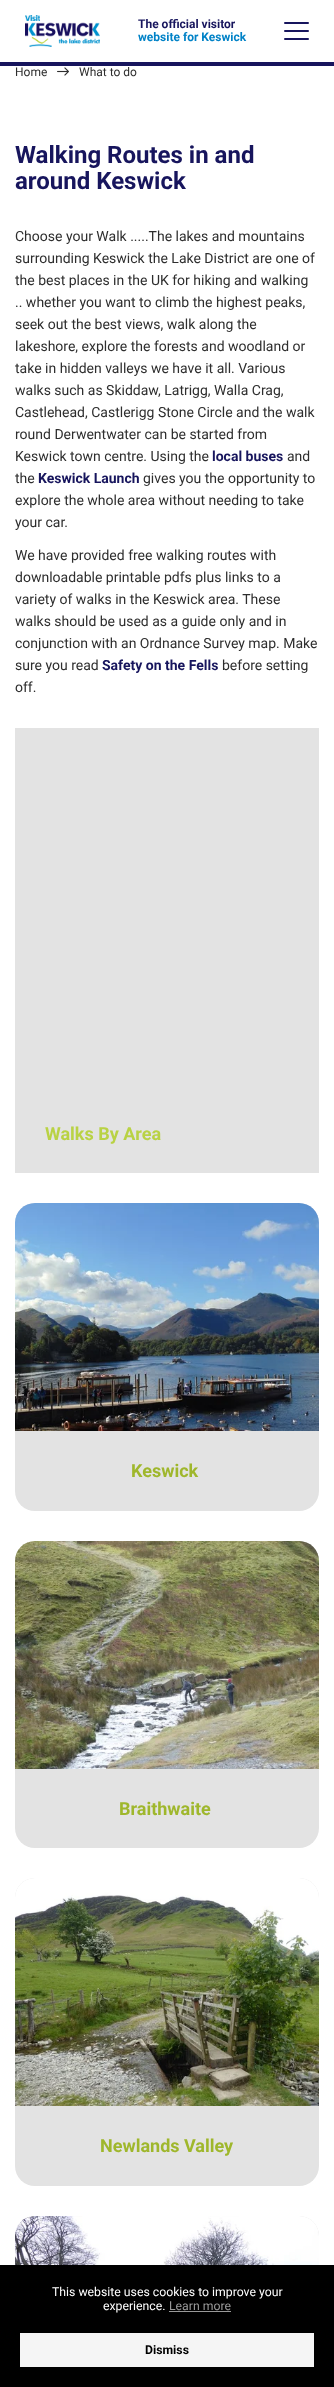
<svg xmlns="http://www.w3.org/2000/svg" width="334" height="2387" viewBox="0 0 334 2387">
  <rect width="100%" height="100%" fill="#ffffff"/>
  <rect x="0" y="62" width="334" height="4" fill="#17155d"/>
  <image x="25" y="15" width="75" height="32" href="img1.png"/>
  <text x="138" y="28" font-family="Roboto" font-size="12" font-weight="bold" fill="#17155d">The official visitor</text>
  <text x="138" y="41" font-family="Roboto" font-size="12" font-weight="bold" fill="#0082c7">website for Keswick</text>
  <rect x="284" y="30" width="25" height="2" rx="1" fill="#17155d"/>
  <rect x="284" y="22" width="25" height="2" rx="1" fill="#17155d"/>
  <rect x="284" y="38" width="25" height="2" rx="1" fill="#17155d"/>
  <text x="15" y="76" font-family="Roboto" font-size="12" fill="#2e2e2e">Home</text>
  <image x="57" y="67" width="12" height="9" href="img2.png"/>
  <text x="79" y="76" font-family="Roboto" font-size="12" fill="#2e2e2e">What to do</text>
  <text x="15" y="163" font-family="Roboto" font-size="24" font-weight="bold" fill="#17155d">Walking Routes in and</text>
  <text x="15" y="189" font-family="Roboto" font-size="24" font-weight="bold" fill="#17155d">around Keswick</text>
  <text x="15" y="241" font-family="Roboto" font-size="14" fill="#2e2e2e">Choose your Walk .....The lakes and mountains</text>
  <text x="15" y="263" font-family="Roboto" font-size="14" fill="#2e2e2e">surrounding Keswick the Lake District are one of</text>
  <text x="15" y="285" font-family="Roboto" font-size="14" fill="#2e2e2e">the best places in the UK for hiking and walking</text>
  <text x="15" y="307" font-family="Roboto" font-size="14" fill="#2e2e2e">.. whether you want to climb the highest peaks,</text>
  <text x="15" y="329" font-family="Roboto" font-size="14" fill="#2e2e2e">seek out the best views, walk along the</text>
  <text x="15" y="351" font-family="Roboto" font-size="14" fill="#2e2e2e">lakeshore, explore the forests and woodland or</text>
  <text x="15" y="373" font-family="Roboto" font-size="14" fill="#2e2e2e">take in hidden valleys we have it all. Various</text>
  <text x="15" y="395" font-family="Roboto" font-size="14" fill="#2e2e2e">walks such as Skiddaw, Latrigg, Walla Crag,</text>
  <text x="15" y="417" font-family="Roboto" font-size="14" fill="#2e2e2e">Castlehead, Castlerigg Stone Circle and the walk</text>
  <text x="15" y="439" font-family="Roboto" font-size="14" fill="#2e2e2e">round Derwentwater can be started from</text>
  <text x="15" y="461" font-family="Roboto" font-size="14" fill="#2e2e2e">Keswick town centre. Using the</text>
  <text x="212" y="461" font-family="Roboto" font-size="14" font-weight="bold" fill="#17155d">local buses</text>
  <text x="287" y="461" font-family="Roboto" font-size="14" fill="#2e2e2e">and</text>
  <text x="15" y="483" font-family="Roboto" font-size="14" fill="#2e2e2e">the</text>
  <text x="38" y="483" font-family="Roboto" font-size="14" font-weight="bold" fill="#17155d">Keswick Launch</text>
  <text x="143" y="483" font-family="Roboto" font-size="14" fill="#2e2e2e">gives you the opportunity to</text>
  <text x="15" y="505" font-family="Roboto" font-size="14" fill="#2e2e2e">explore the whole area without needing to take</text>
  <text x="15" y="527" font-family="Roboto" font-size="14" fill="#2e2e2e">your car.</text>
  <text x="15" y="560" font-family="Roboto" font-size="14" fill="#2e2e2e">We have provided free walking routes with</text>
  <text x="15" y="582" font-family="Roboto" font-size="14" fill="#2e2e2e">downloadable printable pdfs plus links to a</text>
  <text x="15" y="604" font-family="Roboto" font-size="14" fill="#2e2e2e">variety of walks in the Keswick area. These</text>
  <text x="15" y="626" font-family="Roboto" font-size="14" fill="#2e2e2e">walks should be used as a guide only and in</text>
  <text x="15" y="648" font-family="Roboto" font-size="14" fill="#2e2e2e">conjunction with an Ordnance Survey map. Make</text>
  <text x="15" y="670" font-family="Roboto" font-size="14" fill="#2e2e2e">sure you read</text>
  <text x="102" y="670" font-family="Roboto" font-size="14" font-weight="bold" fill="#17155d">Safety on the Fells</text>
  <text x="222" y="670" font-family="Roboto" font-size="14" fill="#2e2e2e">before setting</text>
  <text x="15" y="692" font-family="Roboto" font-size="14" fill="#2e2e2e">off.</text>
  <rect x="15" y="728" width="304" height="445" fill="#e3e3e3"/>
  <text x="45" y="1140" font-family="Roboto" font-size="18" font-weight="bold" fill="#b9d244">Walks By Area</text>
  <rect x="15" y="1203" width="304" height="308" rx="20" fill="#e3e3e3"/>
  <image x="15" y="1203" width="304" height="228" href="img3.png"/>
  <text x="131" y="1477" font-family="Roboto" font-size="18" font-weight="bold" fill="#9fb72c">Keswick</text>
  <rect x="15" y="1541" width="304" height="307" rx="20" fill="#e3e3e3"/>
  <image x="15" y="1541" width="304" height="228" href="img4.png"/>
  <text x="119" y="1815" font-family="Roboto" font-size="18" font-weight="bold" fill="#9fb72c">Braithwaite</text>
  <rect x="15" y="1878" width="304" height="308" rx="20" fill="#e3e3e3"/>
  <image x="15" y="1878" width="304" height="228" href="img5.png"/>
  <text x="100" y="2152" font-family="Roboto" font-size="18" font-weight="bold" fill="#9fb72c">Newlands Valley</text>
  <rect x="15" y="2216" width="304" height="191" rx="20" fill="#e3e3e3"/>
  <image x="15" y="2216" width="304" height="49" href="img6.png"/>
  <rect x="0" y="2265" width="334" height="122" fill="#000000"/>
  <text x="52" y="2296" font-family="Roboto" font-size="12.25" fill="#ffffff">This website uses cookies to improve your</text>
  <text x="103" y="2310" font-family="Roboto" font-size="12.25" fill="#ffffff">experience.</text>
  <text x="169" y="2310" font-family="Roboto" font-size="12.25" fill="#999999">Learn more</text>
  <rect x="169" y="2311" width="62" height="1" fill="#999999"/>
  <rect x="20" y="2333" width="294" height="34" fill="#f5f5f5"/>
  <text x="145" y="2354" font-family="Roboto" font-size="12.25" font-weight="bold" fill="#000000">Dismiss</text>
</svg>
